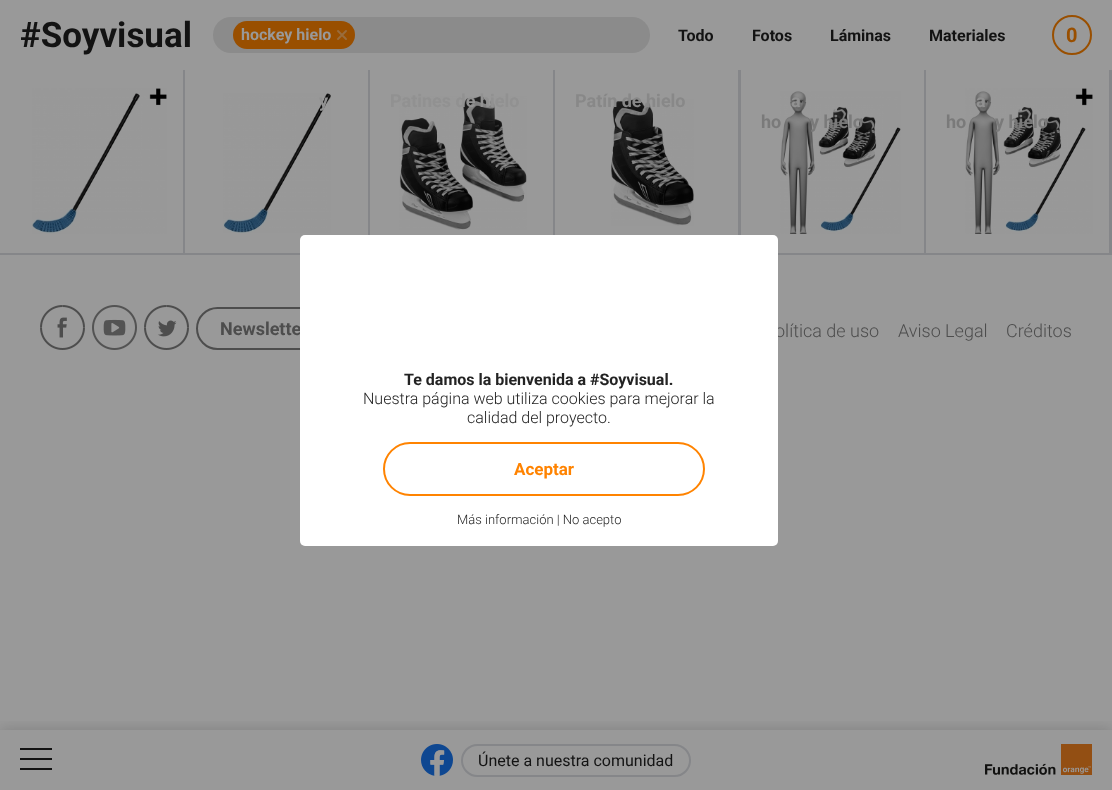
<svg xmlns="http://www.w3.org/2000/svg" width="1112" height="790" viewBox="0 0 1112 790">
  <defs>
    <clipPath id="clip1"><rect x="0" y="70" width="185" height="185"/></clipPath>
    <clipPath id="clip2"><rect x="185" y="70" width="185" height="185"/></clipPath>
    <clipPath id="clip3"><rect x="370" y="70" width="185" height="185"/></clipPath>
    <clipPath id="clip4"><rect x="555" y="70" width="185" height="185"/></clipPath>
    <clipPath id="clip5"><rect x="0" y="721" width="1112" height="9"/></clipPath>
    <filter id="blur1" x="-50%" y="-200%" width="200%" height="500%"><feGaussianBlur stdDeviation="7"/></filter>
  </defs>
  <rect width="100%" height="100%" fill="#999999"/>
  <text x="20" y="47" font-family="Roboto" font-size="35" font-weight="bold" fill="#131313">#Soyvisual</text>
  <rect x="213" y="17" width="437" height="36" rx="18" fill="#8b8b8b"/>
  <rect x="233" y="21" width="122" height="28" rx="14" fill="#994f00"/>
  <text x="241" y="40" font-family="Roboto" font-size="16" font-weight="bold" fill="#999999">hockey hielo</text>
  <path d="M338 39L346 31M338 31L346 39" fill="none" stroke="#996d3d" stroke-width="1.9" stroke-linecap="round"/>
  <text x="678" y="41" font-family="Roboto" font-size="16" font-weight="bold" fill="#131313">Todo</text>
  <text x="752" y="41" font-family="Roboto" font-size="16" font-weight="bold" fill="#131313">Fotos</text>
  <text x="830" y="41" font-family="Roboto" font-size="16" font-weight="bold" fill="#131313">Láminas</text>
  <text x="929" y="41" font-family="Roboto" font-size="16" font-weight="bold" fill="#131313">Materiales</text>
  <circle cx="1072" cy="35" r="19" fill="none" stroke="#994f00" stroke-width="2"/>
  <text x="1066" y="42" font-family="Roboto" font-size="20" font-weight="bold" fill="#994f00">0</text>
  <rect x="740" y="70" width="372" height="185" fill="#858689"/>
  <g clip-path="url(#clip1)">
    <path d="M-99-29H284V354H-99ZM0 70H183V253H0Z" fill="#858689" fill-rule="evenodd"/>
  </g>
  <image x="32" y="88" width="135" height="146" href="img1.png"/>
  <g clip-path="url(#clip2)">
    <path d="M86-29H469V354H86ZM185 70H368V253H185Z" fill="#858689" fill-rule="evenodd"/>
  </g>
  <image x="223" y="93" width="108" height="140" href="img2.png"/>
  <text x="319" y="107" font-family="Roboto" font-size="18" font-weight="bold" fill="#919191">y</text>
  <g clip-path="url(#clip3)">
    <path d="M271-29H654V354H271ZM370 70H553V253H370Z" fill="#858689" fill-rule="evenodd"/>
  </g>
  <image x="399" y="96" width="128" height="134" href="img3.png"/>
  <text x="390" y="107" font-family="Roboto" font-size="18" font-weight="bold" fill="#919191">Patines de hielo</text>
  <g clip-path="url(#clip4)">
    <path d="M456-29H839V354H456ZM555 70H738V253H555Z" fill="#858689" fill-rule="evenodd"/>
  </g>
  <image x="611" y="99" width="83" height="127" href="img4.png"/>
  <text x="575" y="107" font-family="Roboto" font-size="18" font-weight="bold" fill="#888888">Patín de hielo</text>
  <rect x="741" y="70" width="183" height="183" fill="#999999"/>
  <image x="780" y="91" width="121" height="143" href="img5.png"/>
  <text x="791" y="107" font-family="Roboto" font-size="18" font-weight="bold" fill="#919191">a</text>
  <text x="761" y="128" font-family="Roboto" font-size="18" font-weight="bold" fill="#7a7a7a">ho</text>
  <text x="810" y="128" font-family="Roboto" font-size="18" font-weight="bold" fill="#7a7a7a">y hielo</text>
  <rect x="926" y="70" width="183" height="183" fill="#999999"/>
  <image x="965" y="88" width="128" height="146" href="img6.png"/>
  <text x="976" y="107" font-family="Roboto" font-size="18" font-weight="bold" fill="#919191">a</text>
  <text x="946" y="128" font-family="Roboto" font-size="18" font-weight="bold" fill="#7a7a7a">ho</text>
  <text x="995" y="128" font-family="Roboto" font-size="18" font-weight="bold" fill="#7a7a7a">y hielo</text>
  <image x="40" y="305" width="45" height="45" href="img7.png"/>
  <image x="92" y="305" width="45" height="45" href="img8.png"/>
  <image x="144" y="305" width="45" height="45" href="img9.png"/>
  <rect x="197" y="308" width="134" height="41" rx="20.5" fill="none" stroke="#4d4d4d" stroke-width="2"/>
  <text x="220" y="335" font-family="Roboto" font-size="18" font-weight="bold" fill="#4d4d4d">Newslette</text>
  <text x="775" y="337" font-family="Roboto" font-size="18" font-weight="300" fill="#4d4d4d">olítica de uso</text>
  <text x="898" y="337" font-family="Roboto" font-size="18" font-weight="300" fill="#4d4d4d">Aviso Legal</text>
  <text x="1006" y="337" font-family="Roboto" font-size="18" font-weight="300" fill="#4d4d4d">Créditos</text>
  <g clip-path="url(#clip5)">
    <rect x="0" y="729" width="1112" height="60" fill="#101010" fill-opacity="0.15" filter="url(#blur1)"/>
  </g>
  <rect x="20" y="758" width="32" height="2" fill="#131313"/>
  <rect x="20" y="748" width="32" height="2" fill="#131313"/>
  <rect x="20" y="768" width="32" height="2" fill="#131313"/>
  <image x="421" y="744" width="32" height="32" href="img10.png"/>
  <rect x="462" y="745" width="228" height="31" rx="15.5" fill="none" stroke="#858689" stroke-width="2"/>
  <text x="478" y="766" font-family="Roboto" font-size="16" fill="#131313">Únete a nuestra comunidad</text>
  <image x="985" y="744" width="107" height="31" href="img11.png"/>
  <rect x="300" y="235" width="478" height="311" rx="5" fill="#ffffff"/>
  <text x="404" y="385" font-family="Roboto" font-size="16" font-weight="bold" fill="#232323">Te damos la bienvenida a #Soyvisual.</text>
  <text x="363" y="404" font-family="Roboto" font-size="16" font-weight="300" fill="#232323">Nuestra página web utiliza cookies para mejorar la</text>
  <text x="467" y="423" font-family="Roboto" font-size="16" font-weight="300" fill="#232323">calidad del proyecto.</text>
  <text x="457" y="524" font-family="Roboto" font-size="13" font-weight="300" fill="#232323">Más información | No acepto</text>
  <rect x="384" y="443" width="320" height="52" rx="26" fill="none" stroke="#ff8300" stroke-width="2"/>
  <text x="514" y="475" font-family="Roboto" font-size="17" font-weight="bold" fill="#ff8300">Aceptar</text>
</svg>
